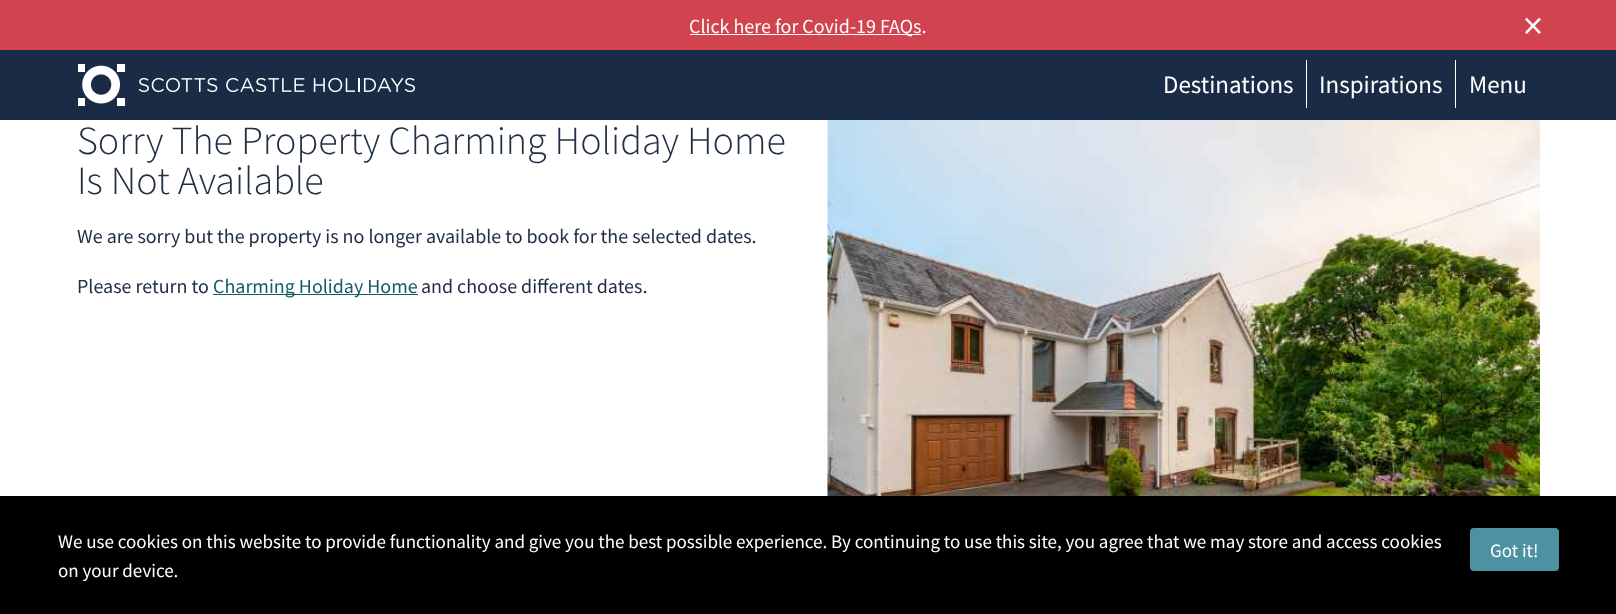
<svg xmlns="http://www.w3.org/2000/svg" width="1616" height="614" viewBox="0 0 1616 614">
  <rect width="100%" height="100%" fill="#ffffff"/>
  <rect x="0" y="0" width="1616" height="50" fill="#d1434f"/>
  <rect x="690" y="34" width="231" height="1" fill="#ffffff"/>
  <text x="689" y="33" font-family="Source Sans Pro" font-size="20" fill="#ffffff">Click here for Covid-19 FAQs.</text>
  <text x="1523" y="39" font-family="Source Sans Pro" font-size="40" fill="#ffffff">×</text>
  <rect x="0" y="50" width="1616" height="70" fill="#1a2b45"/>
  <image x="78" y="64" width="337" height="42" href="img1.png"/>
  <rect x="1306" y="60" width="1" height="48" fill="#ffffff"/>
  <text x="1163" y="93" font-family="Source Sans Pro" font-size="25" fill="#ffffff">Destinations</text>
  <rect x="1455" y="60" width="1" height="48" fill="#ffffff"/>
  <text x="1319" y="93" font-family="Source Sans Pro" font-size="25" fill="#ffffff">Inspirations</text>
  <text x="1469" y="93" font-family="Source Sans Pro" font-size="25" fill="#ffffff">Menu</text>
  <text x="77" y="154" font-family="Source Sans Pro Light" font-size="40" font-weight="300" fill="#212f45">Sorry The Property Charming Holiday Home</text>
  <text x="77" y="194" font-family="Source Sans Pro Light" font-size="40" font-weight="300" fill="#212f45">Is Not Available</text>
  <text x="77" y="243" font-family="Source Sans Pro" font-size="20" fill="#212f45">We are sorry but the property is no longer available to book for the selected dates.</text>
  <text x="77" y="293" font-family="Source Sans Pro" font-size="20" fill="#212f45">Please return to</text>
  <rect x="213" y="294" width="205" height="1" fill="#135a6a"/>
  <text x="213" y="293" font-family="Source Sans Pro" font-size="20" fill="#135a6a">Charming Holiday Home</text>
  <text x="421" y="293" font-family="Source Sans Pro" font-size="20" fill="#212f45">and choose different dates.</text>
  <image x="827" y="120" width="713" height="376" href="img2.png"/>
  <rect x="0" y="496" width="1616" height="118" fill="#000000"/>
  <text x="58" y="548" font-family="Source Sans Pro" font-size="19" fill="#ffffff">We use cookies on this website to provide functionality and give you the best possible experience. By continuing to use this site, you agree that we may store and access cookies</text>
  <text x="58" y="577" font-family="Source Sans Pro" font-size="19" fill="#ffffff">on your device.</text>
  <rect x="1470" y="528" width="89" height="43" rx="4" fill="#4c92a3"/>
  <text x="1490" y="557" font-family="Source Sans Pro" font-size="19" fill="#ffffff">Got it!</text>
</svg>
